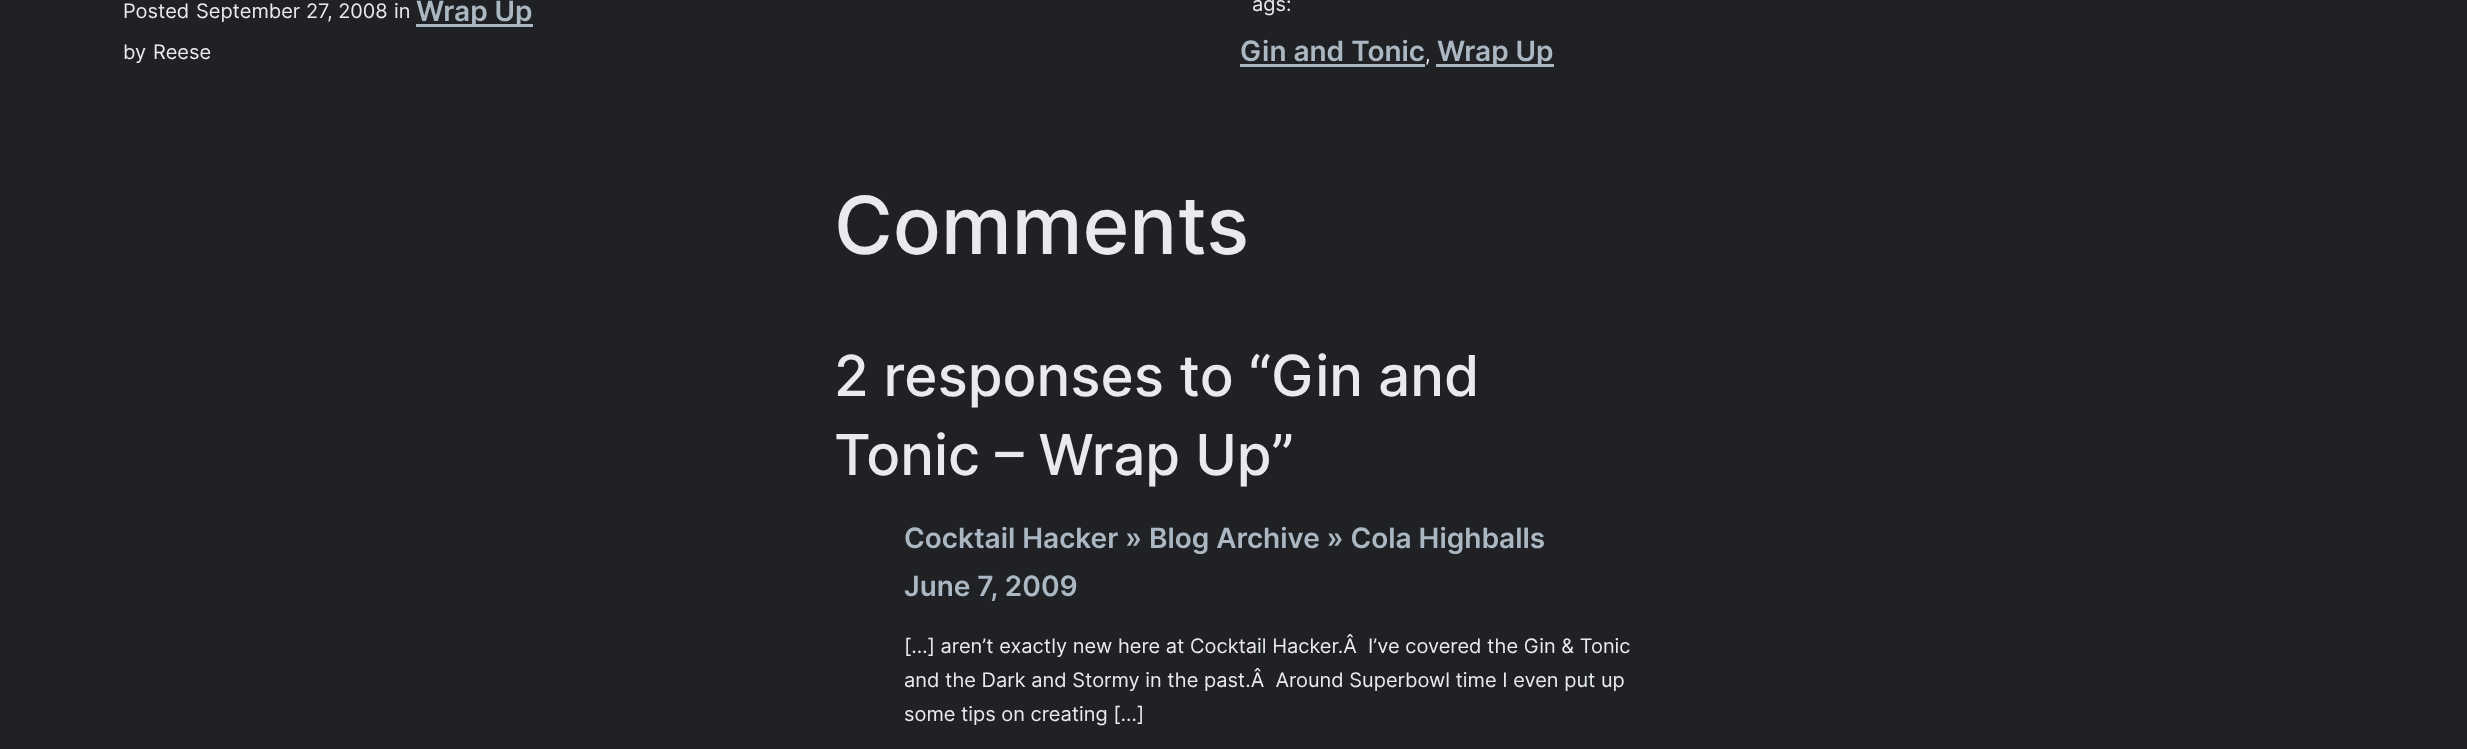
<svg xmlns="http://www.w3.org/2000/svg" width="2467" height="749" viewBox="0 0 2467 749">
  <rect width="100%" height="100%" fill="#202124"/>
  <text x="123" y="18" font-family="Inter" font-size="20" fill="#e8eaed">Posted</text>
  <text x="196" y="18" font-family="Inter" font-size="20" fill="#e8eaed">September 27, 2008</text>
  <text x="394" y="18" font-family="Inter" font-size="20" fill="#e8eaed">in</text>
  <rect x="416" y="24" width="117" height="3" fill="#abb8c3"/>
  <text x="416" y="21" font-family="Inter" font-size="28" font-weight="600" fill="#abb8c3">Wrap Up</text>
  <text x="123" y="59" font-family="Inter" font-size="20" fill="#e8eaed">by</text>
  <text x="153" y="59" font-family="Inter" font-size="20" fill="#e8eaed">Reese</text>
  <text x="1252" y="11" font-family="Inter" font-size="20" fill="#e8eaed">ags:</text>
  <text x="1240" y="61" font-family="Inter" font-size="28" font-weight="600" fill="#abb8c3">Gin and Tonic</text>
  <rect x="1240" y="64" width="185" height="3" fill="#abb8c3"/>
  <text x="1425" y="61" font-family="Inter" font-size="20" fill="#e8eaed">,</text>
  <rect x="1436" y="64" width="118" height="3" fill="#abb8c3"/>
  <text x="1437" y="61" font-family="Inter" font-size="28" font-weight="600" fill="#abb8c3">Wrap Up</text>
  <text x="834" y="254" font-family="Inter" font-size="80" font-weight="500" fill="#e8eaed">Comments</text>
  <text x="834" y="396" font-family="Inter" font-size="56.5" font-weight="500" fill="#e8eaed">2 responses to “Gin and</text>
  <text x="834" y="475" font-family="Inter" font-size="56.5" font-weight="500" fill="#e8eaed">Tonic – Wrap Up”</text>
  <text x="904" y="548" font-family="Inter" font-size="28" font-weight="600" fill="#abb8c3">Cocktail Hacker » Blog Archive » Cola Highballs</text>
  <text x="904" y="596" font-family="Inter" font-size="28" font-weight="600" fill="#abb8c3">June 7, 2009</text>
  <text x="904" y="653" font-family="Inter" font-size="20" fill="#e8eaed" xml:space="preserve">[…] aren’t exactly new here at Cocktail Hacker.Â  I’ve covered the Gin &amp; Tonic</text>
  <text x="904" y="687" font-family="Inter" font-size="20" fill="#e8eaed" xml:space="preserve">and the Dark and Stormy in the past.Â  Around Superbowl time I even put up</text>
  <text x="904" y="721" font-family="Inter" font-size="20" fill="#e8eaed">some tips on creating […]</text>
</svg>
